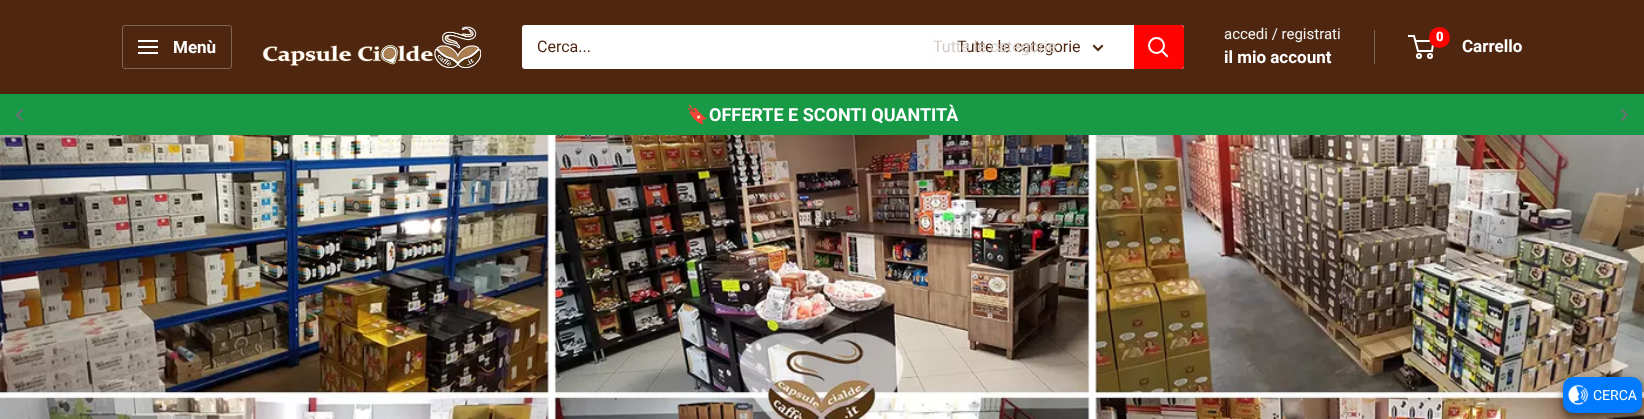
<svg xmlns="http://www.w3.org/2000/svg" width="1644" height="419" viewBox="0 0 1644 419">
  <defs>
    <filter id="blur1" x="-50%" y="-200%" width="200%" height="500%"><feGaussianBlur stdDeviation="4"/></filter>
  </defs>
  <rect width="100%" height="100%" fill="#ffffff"/>
  <rect x="0" y="0" width="1644" height="94" fill="#4f2710"/>
  <rect x="122.5" y="25.5" width="109" height="43" rx="2.5" fill="none" stroke="#816554"/>
  <image x="138" y="40" width="20" height="14" href="img1.png"/>
  <text x="173" y="53" font-family="Roboto" font-size="17" font-weight="bold" fill="#ffffff">Menù</text>
  <image x="262" y="26" width="220" height="42" href="img2.png"/>
  <rect x="522" y="25" width="662" height="44" rx="3" fill="#ffffff"/>
  <text x="537" y="52" font-family="Roboto" font-size="16" fill="#4f2710">Cerca...</text>
  <rect x="931" y="25" width="1" height="44" fill="#fcfcfc"/>
  <text x="957" y="52" font-family="Roboto" font-size="16" fill="#4f2710">Tutte le categorie</text>
  <text x="933" y="52" font-family="Roboto" font-size="16" fill="#d6cdc7">Tutte le categorie</text>
  <path d="M1102 46L1098 50L1094 46" fill="none" stroke="#4f2710" stroke-width="2" stroke-linecap="square"/>
  <path d="M1134 25H1181C1182.5 25 1184 26.5 1184 28V66C1184 67.5 1182.5 69 1181 69H1134Z" fill="#ff0303"/>
  <path d="M1167 56L1162 51" fill="none" stroke="#ffffff" stroke-width="2" stroke-linecap="square"/>
  <circle cx="1156.5" cy="45.5" r="7.5" fill="none" stroke="#ffffff" stroke-width="2"/>
  <text x="1224" y="39" font-family="Roboto" font-size="15" fill="#f4f4f4">accedi / registrati</text>
  <rect x="1374" y="30" width="1" height="34" fill="#816554"/>
  <text x="1224" y="63" font-family="Roboto" font-size="17" font-weight="bold" fill="#ffffff">il mio account</text>
  <circle cx="1419" cy="56" r="2" fill="none" stroke="#ffffff" stroke-width="2"/>
  <circle cx="1430" cy="56" r="2" fill="none" stroke="#ffffff" stroke-width="2"/>
  <path d="M1415.5 41H1433.5L1432 51H1418L1414 36H1408" fill="none" stroke="#ffffff" stroke-width="2"/>
  <circle cx="1439.5" cy="37.5" r="10.5" fill="#ff0303"/>
  <text x="1436" y="41" font-family="Roboto" font-size="13" font-weight="900" fill="#ffffff">0</text>
  <text x="1462" y="52" font-family="Roboto" font-size="17" font-weight="bold" fill="#ffffff">Carrello</text>
  <rect x="0" y="94" width="1644" height="41" fill="#179946"/>
  <text x="686" y="121" font-family="Noto Color Emoji" font-size="18" font-weight="bold" fill="#ffffff">🔖</text>
  <text x="709" y="121" font-family="Roboto" font-size="18" font-weight="bold" fill="#ffffff">OFFERTE E SCONTI QUANTITÀ</text>
  <image x="16" y="109" width="7" height="12" href="img3.png"/>
  <image x="1621" y="109" width="7" height="12" href="img4.png"/>
  <image x="0" y="135" width="1644" height="284" href="img5.png"/>
  <rect x="1563" y="381" width="79" height="36" rx="10" fill="#000000" fill-opacity="0.5" filter="url(#blur1)"/>
  <rect x="1563" y="377" width="79" height="36" rx="10" fill="#007bff"/>
  <image x="1568" y="384" width="21" height="21" href="img6.png"/>
  <text x="1593" y="400" font-family="Roboto" font-size="14" fill="#ffffff">CERCA</text>
</svg>
